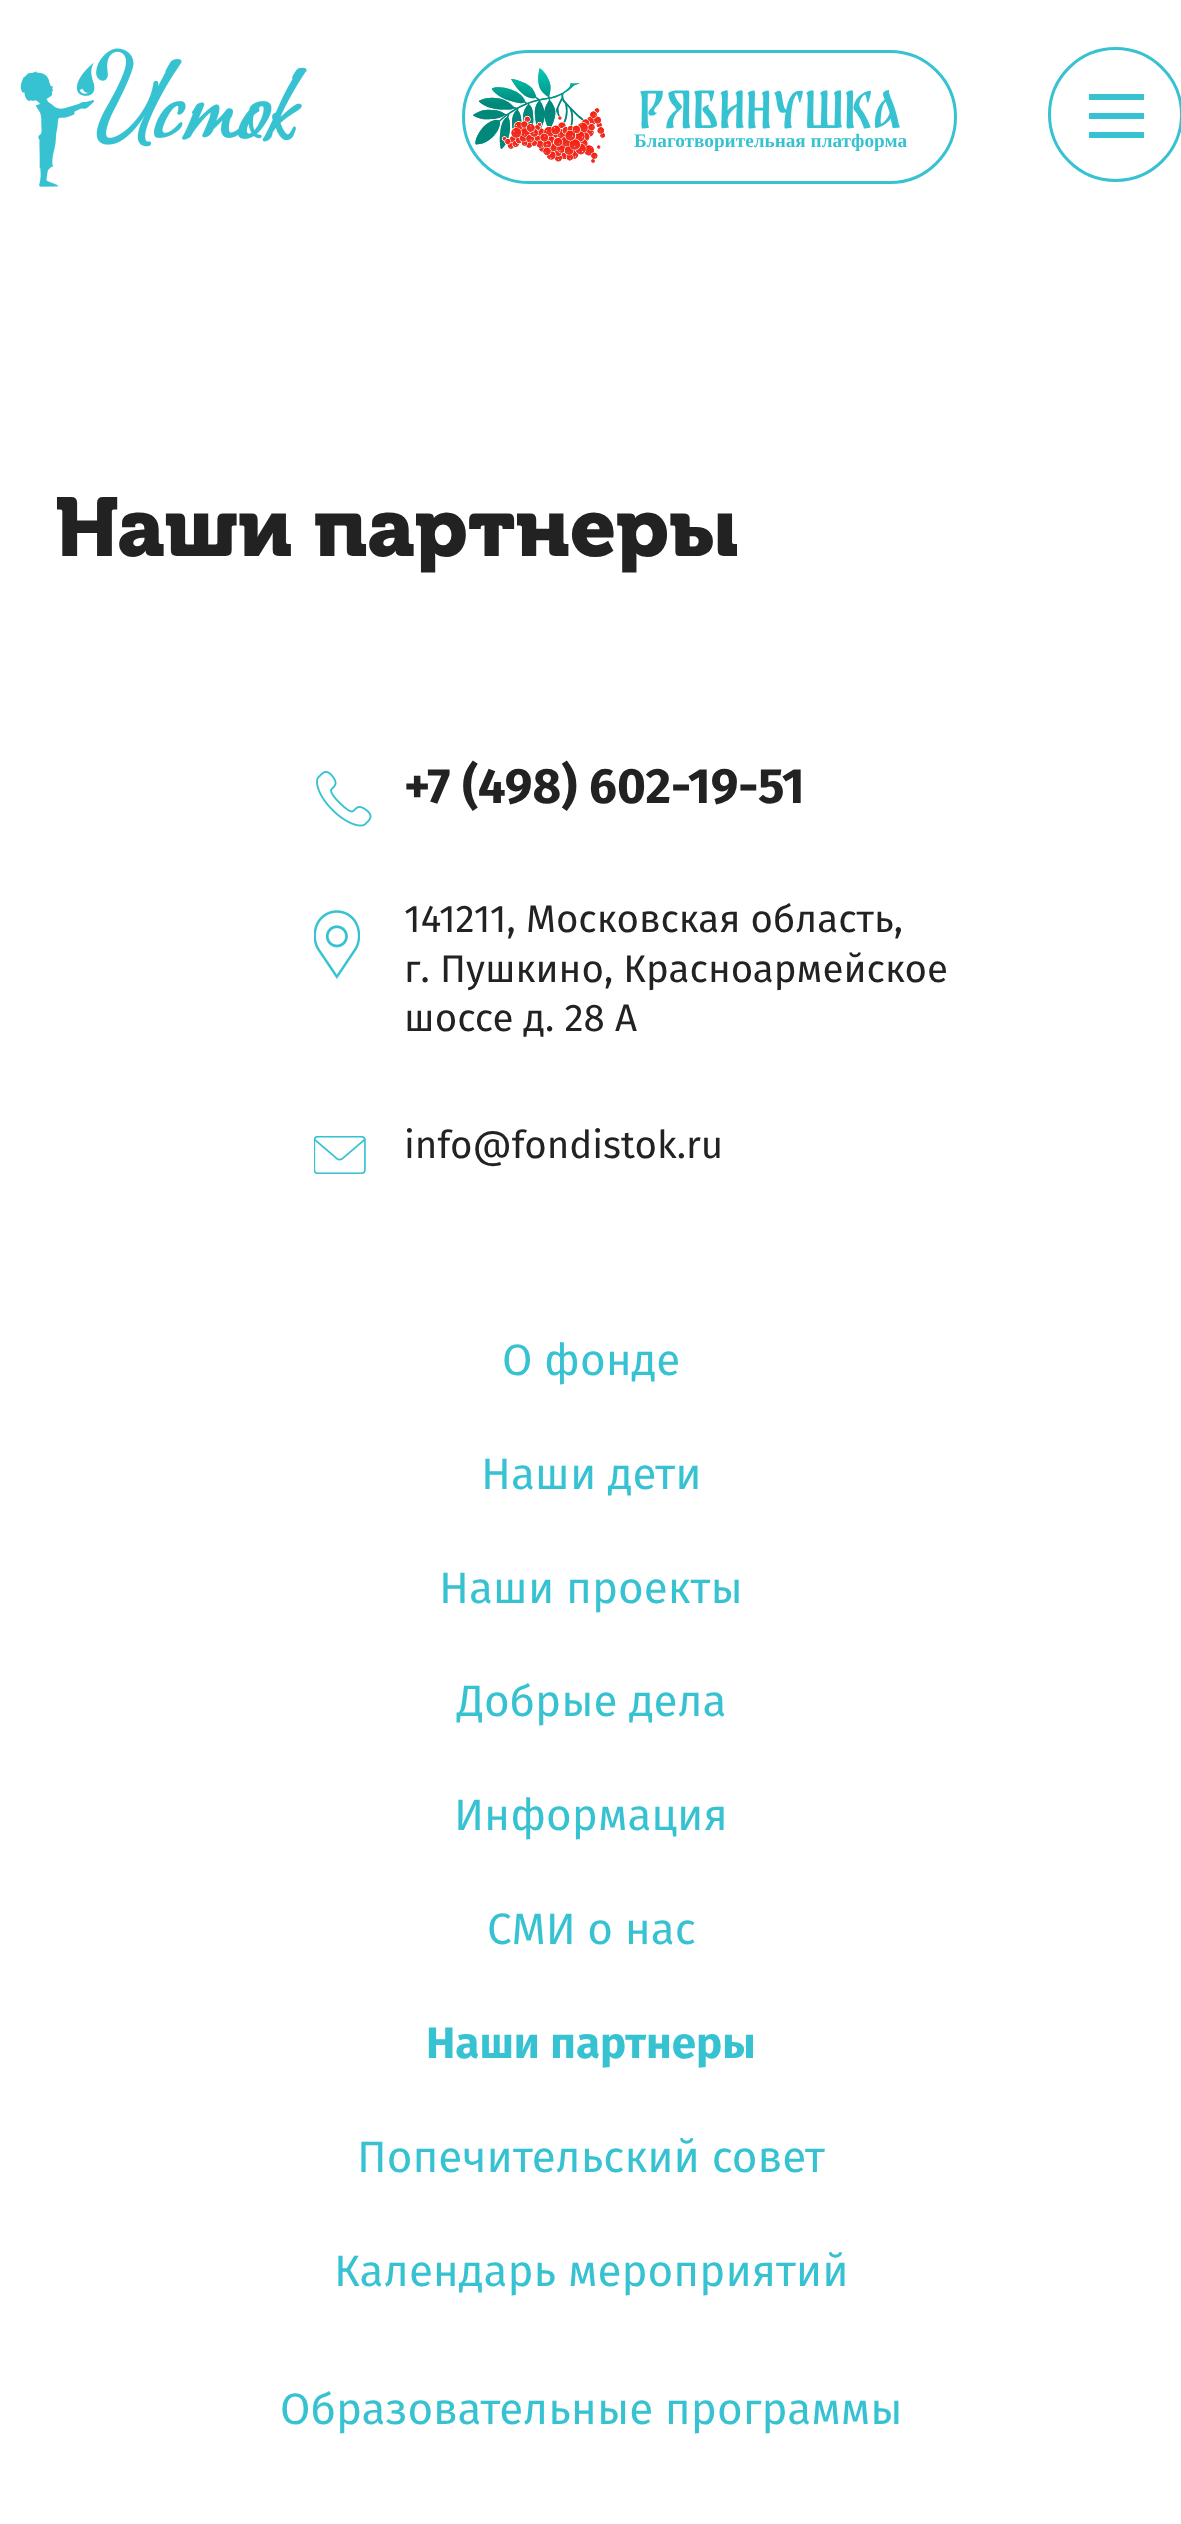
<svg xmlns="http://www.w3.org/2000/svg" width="1181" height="2524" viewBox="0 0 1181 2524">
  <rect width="100%" height="100%" fill="#ffffff"/>
  <image x="20" y="48" width="287" height="139" href="img1.png"/>
  <rect x="463.5" y="51.5" width="492" height="131" rx="65.5" fill="none" stroke="#37c2d2" stroke-width="3"/>
  <image x="473" y="68" width="132" height="95" href="img2.png"/>
  <text x="638" y="128" font-family="'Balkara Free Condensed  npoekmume'" font-size="46.75" fill="#37c2d2">рябинушка</text>
  <text x="634" y="147" font-family="Liberation Serif" font-size="19.25" font-weight="bold" fill="#37c2d2">Благотворительная платформа</text>
  <circle cx="1115.5" cy="114.5" r="66" fill="none" stroke="#37c2d2" stroke-width="3"/>
  <rect x="1089" y="113" width="55" height="6" fill="#37c2d2"/>
  <rect x="1089" y="94" width="55" height="6" fill="#37c2d2"/>
  <rect x="1089" y="132" width="55" height="6" fill="#37c2d2"/>
  <text x="55" y="556" font-family="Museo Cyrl" font-size="82.5" font-weight="bold" fill="#222222">Наши партнеры</text>
  <image x="316" y="771" width="56" height="56" href="img3.png"/>
  <text x="404" y="803" font-family="Fira Sans" font-size="49.5" font-weight="bold" fill="#222222">+7 (498) 602-19-51</text>
  <image x="314" y="910" width="46" height="69" href="img4.png"/>
  <text x="404" y="932" font-family="Fira Sans" font-size="38.5" fill="#222222">141211, Московская область,</text>
  <text x="404" y="982" font-family="Fira Sans" font-size="38.5" fill="#222222">г. Пушкино, Красноармейское</text>
  <text x="404" y="1031" font-family="Fira Sans" font-size="38.5" fill="#222222">шоссе д. 28 А</text>
  <image x="314" y="1136" width="52" height="38" href="img5.png"/>
  <text x="404" y="1158" font-family="Fira Sans" font-size="38.5" fill="#222222">info@fondistok.ru</text>
  <text x="502" y="1375" font-family="Fira Sans" font-size="44" fill="#37c2d2">О фонде</text>
  <text x="481" y="1489" font-family="Fira Sans" font-size="44" fill="#37c2d2">Наши дети</text>
  <text x="439" y="1603" font-family="Fira Sans" font-size="44" fill="#37c2d2">Наши проекты</text>
  <text x="457" y="1716" font-family="Fira Sans" font-size="44" fill="#37c2d2">Добрые дела</text>
  <text x="454" y="1830" font-family="Fira Sans" font-size="44" fill="#37c2d2">Информация</text>
  <text x="487" y="1944" font-family="Fira Sans" font-size="44" fill="#37c2d2">СМИ о нас</text>
  <text x="426" y="2058" font-family="Fira Sans" font-size="44" font-weight="bold" fill="#37c2d2">Наши партнеры</text>
  <text x="357" y="2172" font-family="Fira Sans" font-size="44" fill="#37c2d2">Попечительский совет</text>
  <text x="334" y="2286" font-family="Fira Sans" font-size="44" fill="#37c2d2">Календарь мероприятий</text>
  <text x="280" y="2424" font-family="Fira Sans" font-size="44" fill="#37c2d2">Образовательные программы</text>
</svg>
